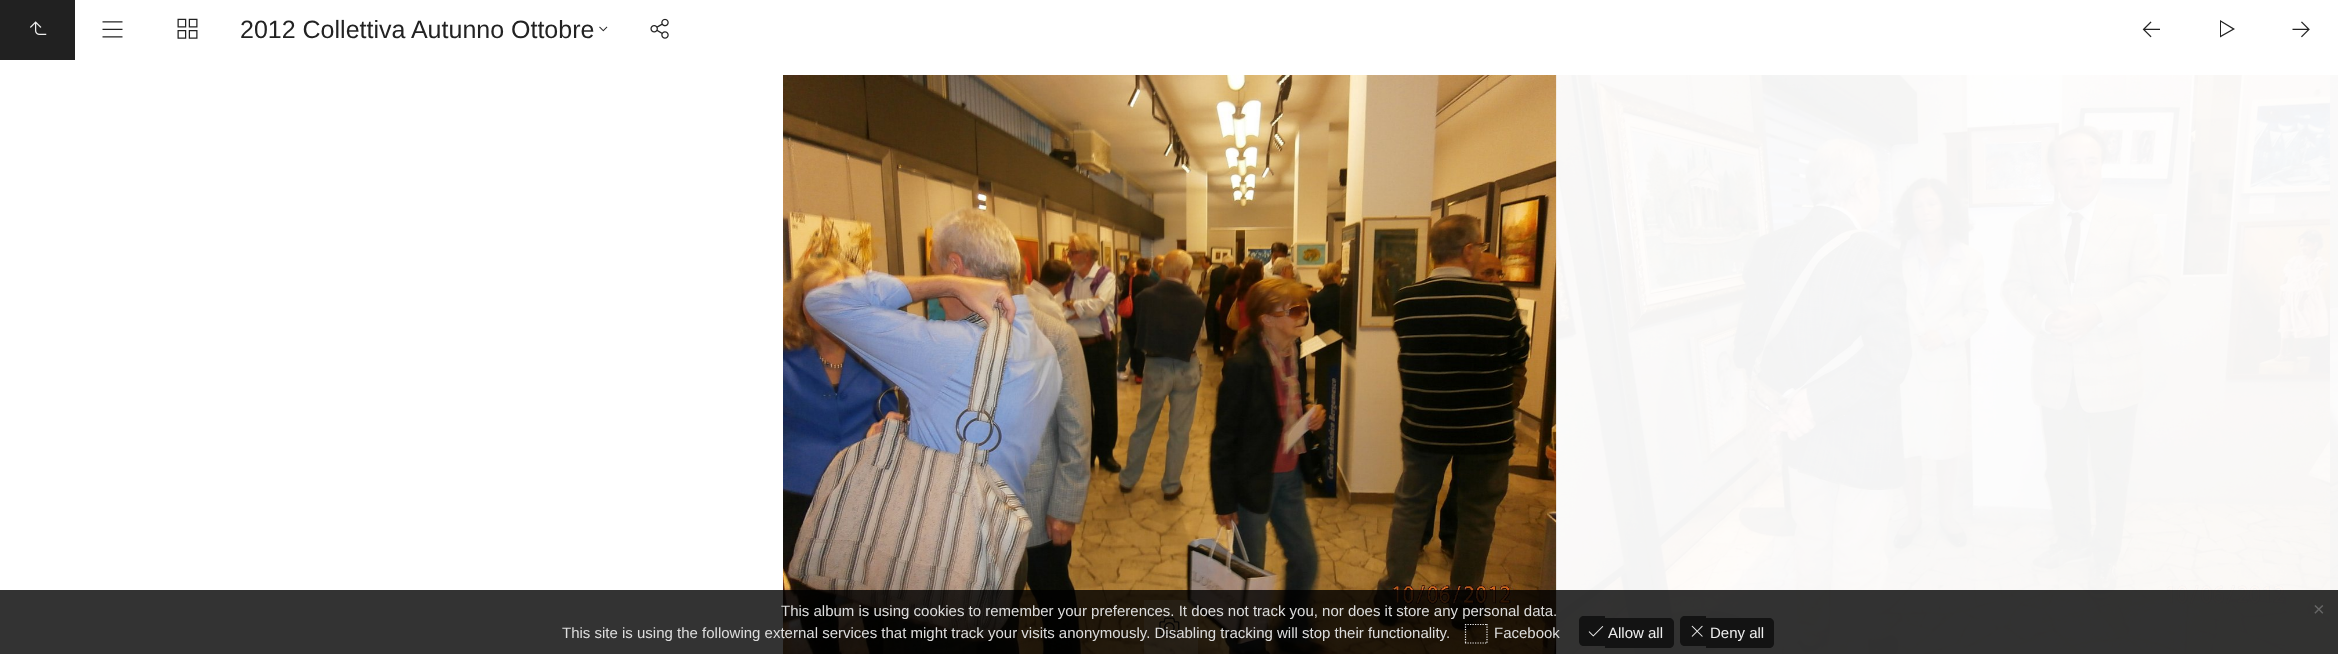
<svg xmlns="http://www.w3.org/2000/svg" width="2338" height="654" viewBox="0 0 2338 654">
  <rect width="100%" height="100%" fill="#ffffff"/>
  <rect x="0" y="0" width="75" height="60" fill="#212121"/>
  <image x="30" y="21" width="17" height="14" href="img1.png"/>
  <image x="102" y="21" width="21" height="17" href="img2.png"/>
  <image x="177" y="18" width="21" height="21" href="img3.png"/>
  <text x="240" y="38" font-family="Liberation Sans" font-size="25" fill="#222222">2012 Collettiva Autunno Ottobre</text>
  <image x="599" y="26" width="9" height="6" href="img4.png"/>
  <image x="650" y="18" width="19" height="21" href="img5.png"/>
  <image x="2142" y="21" width="18" height="17" href="img6.png"/>
  <path d="M2221 22L2232.5 29L2221 35.5ZM2220 20V37.5L2235 29Z" fill="#222222"/>
  <image x="2292" y="21" width="18" height="17" href="img7.png"/>
  <image x="783" y="75" width="774" height="579" href="img8.png"/>
  <rect x="1144" y="600" width="54" height="54" fill="#ffffff" fill-opacity="0.25"/>
  <image x="1159" y="617" width="21" height="18" href="img9.png"/>
  <image x="1556" y="75" width="774" height="579" href="img10.png"/>
  <image x="2330" y="75" width="8" height="579" href="img11.png"/>
  <rect x="0" y="590" width="2338" height="64" fill="#000000" fill-opacity="0.8"/>
  <text x="781" y="616" font-family="Liberation Sans" font-size="15" fill="#dddddd">This album is using cookies to remember your preferences. It does not track you, nor does it store any personal data.</text>
  <text x="2313" y="616" font-family="Liberation Sans" font-size="20" fill="#666666">×</text>
  <text x="562" y="638" font-family="Liberation Sans" font-size="15" fill="#dddddd">This site is using the following external services that might track your visits anonymously. Disabling tracking will stop their functionality.</text>
  <path d="M1465 624.5H1487.5M1487 624V644M1465 643H1487.5M1465.5 624V644" fill="none" stroke="#eeeeee" stroke-width="1.2" stroke-dasharray="1.25 1.25"/>
  <text x="1494" y="638" font-family="Liberation Sans" font-size="15" fill="#dddddd">Facebook</text>
  <path d="M1584 616H1605V646H1584C1581 646 1579 644 1579 641V621C1579 618 1581 616 1584 616Z" fill="#131313"/>
  <image x="1588" y="626" width="16" height="11" href="img12.png"/>
  <path d="M1605 618H1669C1672 618 1674 620 1674 623V643C1674 646 1672 648 1669 648H1605Z" fill="#131313"/>
  <text x="1608" y="638" font-family="Liberation Sans" font-size="15" fill="#eeeeee">Allow all</text>
  <path d="M1685 616H1706V646H1685C1682 646 1680 644 1680 641V621C1680 618 1682 616 1685 616Z" fill="#131313"/>
  <image x="1691" y="625" width="12" height="12" href="img13.png"/>
  <path d="M1706 618H1769C1772 618 1774 620 1774 623V643C1774 646 1772 648 1769 648H1706Z" fill="#131313"/>
  <text x="1710" y="638" font-family="Liberation Sans" font-size="15" fill="#eeeeee">Deny all</text>
</svg>
